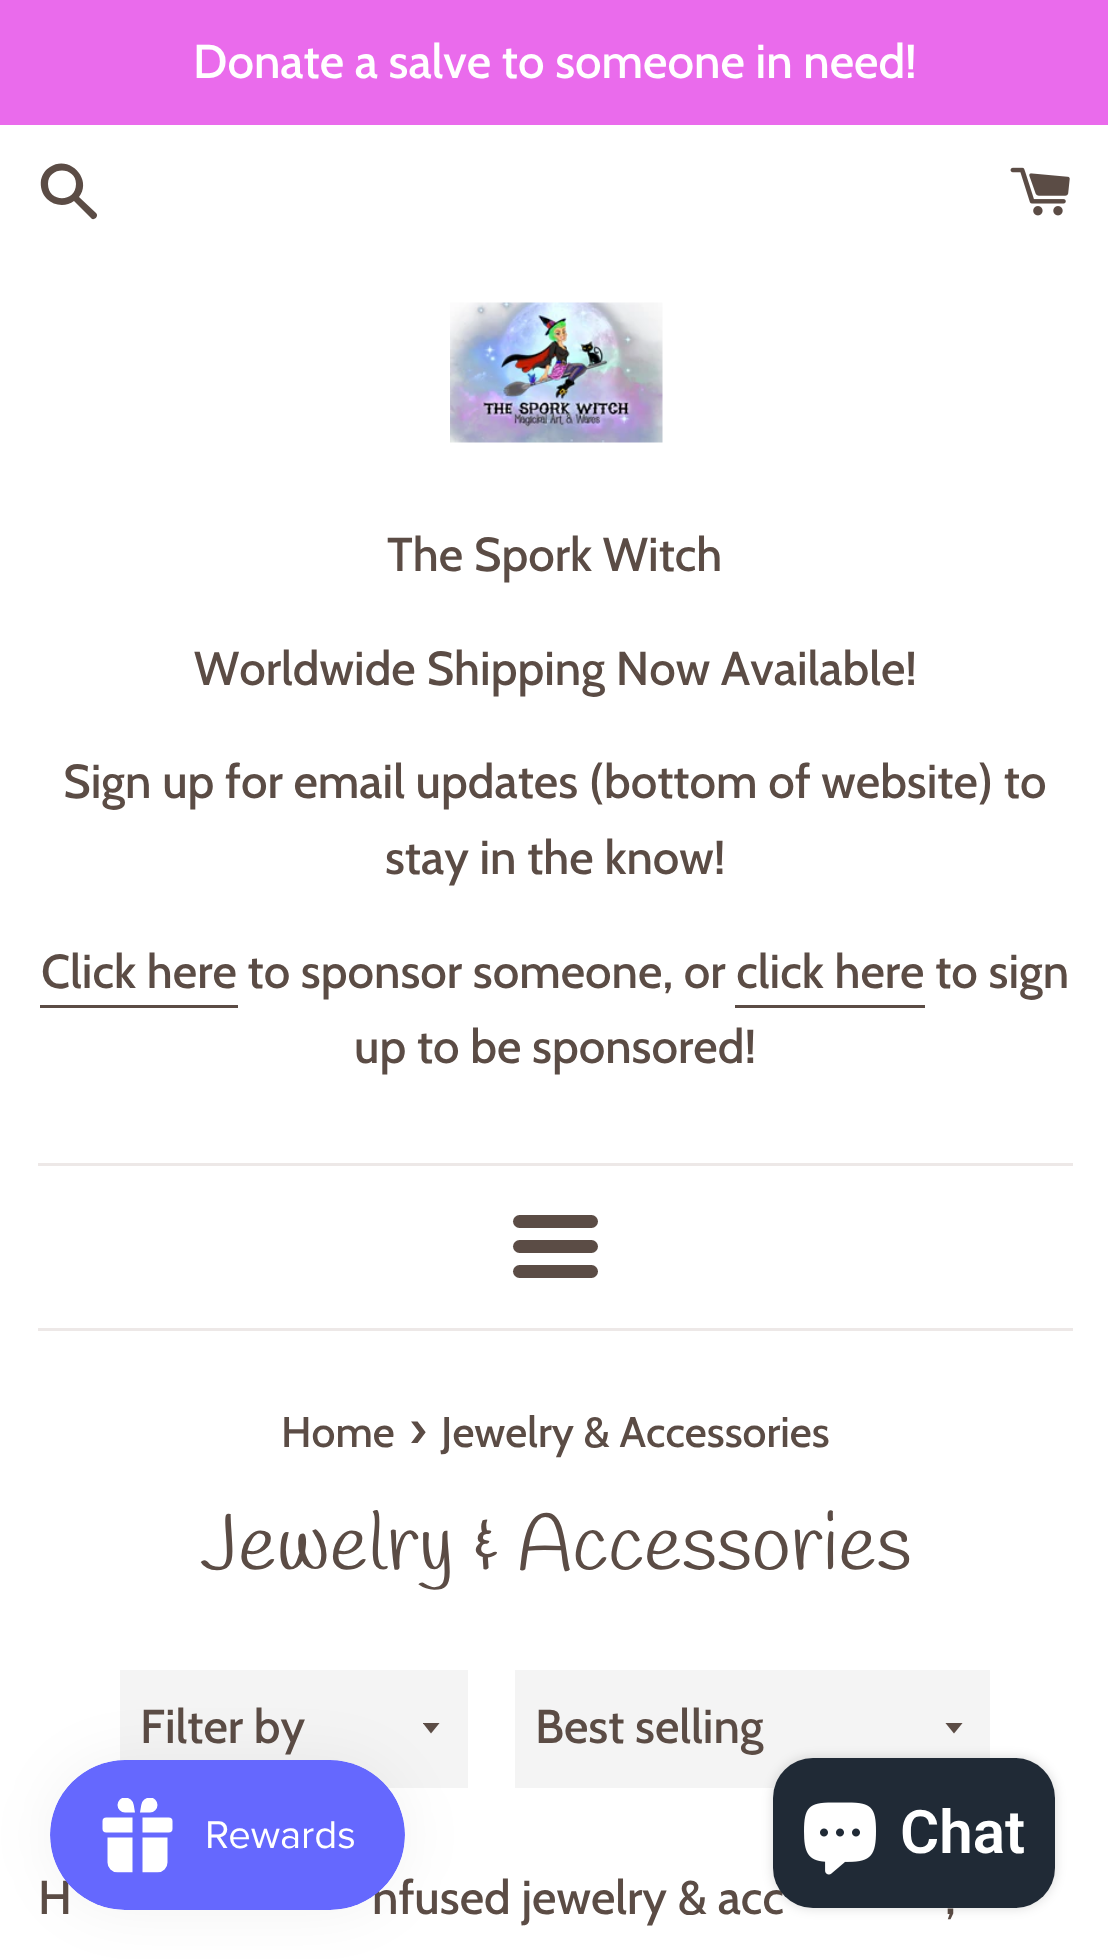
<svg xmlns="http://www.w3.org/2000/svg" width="1108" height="1959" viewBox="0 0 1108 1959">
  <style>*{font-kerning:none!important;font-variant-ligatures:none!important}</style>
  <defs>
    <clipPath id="clip1"><rect x="423" y="1723" width="20" height="12"/></clipPath>
    <clipPath id="clip2"><rect x="945" y="1723" width="20" height="12"/></clipPath>
    <filter id="blur1" x="-50%" y="-200%" width="200%" height="500%"><feGaussianBlur stdDeviation="31"/></filter>
    <filter id="blur2" x="-50%" y="-200%" width="200%" height="500%"><feGaussianBlur stdDeviation="6"/></filter>
  </defs>
  <rect width="100%" height="100%" fill="#ffffff"/>
  <rect x="0" y="0" width="1108" height="125" fill="#ea6bec"/>
  <text x="193" y="78" font-family="Cabin" font-size="47.5" font-weight="500" fill="#ffffff">Donate a salve to someone in need!</text>
  <path d="M96 213L79 197C93 179 69 154 50 167C45 170 42 175 41 180C40 187 42 194 47 199C54 206 66 207 74 201L92 219C95 220 99 216 96 213ZM48 184C48 166 76 166 76 184C76 203 48 203 48 184Z" fill="#5b4c45"/>
  <image x="1010" y="167" width="60" height="49" href="img1.png"/>
  <image x="450" y="302" width="213" height="141" href="img2.png"/>
  <text x="387" y="571" font-family="Cabin" font-size="47.5" font-weight="500" fill="#5b4c45">The Spork Witch</text>
  <text x="194" y="685" font-family="Cabin" font-size="47.5" font-weight="500" fill="#5b4c45">Worldwide Shipping Now Available!</text>
  <text x="63" y="798" font-family="Cabin" font-size="47.5" font-weight="500" fill="#5b4c45">Sign up for email updates (bottom of website) to</text>
  <text x="385" y="874" font-family="Cabin" font-size="47.5" font-weight="500" fill="#5b4c45">stay in the know!</text>
  <text x="41" y="988" font-family="Cabin" font-size="47.5" font-weight="500" fill="#5b4c45">Click here to sponsor someone, or click here to sign</text>
  <rect x="40" y="1005" width="198" height="3" fill="#5b4c45"/>
  <rect x="735" y="1005" width="190" height="3" fill="#5b4c45"/>
  <text x="354" y="1063" font-family="Cabin" font-size="47.5" font-weight="500" fill="#5b4c45">up to be sponsored!</text>
  <rect x="38" y="1163" width="1035" height="3" fill="#ede8e7"/>
  <rect x="513" y="1215" width="85" height="13" rx="6.5" fill="#5b4c45"/>
  <rect x="513" y="1240" width="85" height="13" rx="6.5" fill="#5b4c45"/>
  <rect x="513" y="1265" width="85" height="13" rx="6.5" fill="#5b4c45"/>
  <rect x="38" y="1328" width="1035" height="3" fill="#ede8e7"/>
  <text x="281" y="1447" font-family="Cabin" font-size="42.75" font-weight="500" fill="#5b4c45">Home</text>
  <text x="409" y="1447" font-family="Cabin" font-size="52" font-weight="500" fill="#5b4c45">›</text>
  <text x="441" y="1447" font-family="Cabin" font-size="42.75" font-weight="500" fill="#5b4c45">Jewelry &amp; Accessories</text>
  <text x="200" y="1570" font-family="Handlee" font-size="80" fill="#5b4c45">Jewelry &amp; Accessories</text>
  <rect x="120" y="1670" width="348" height="118" fill="#f4f4f4"/>
  <g clip-path="url(#clip1)">
    <path d="M422.5 1722.5L431 1733.5L440 1722.5Z" fill="#5b4c45"/>
  </g>
  <text x="140" y="1743" font-family="Cabin" font-size="47.5" font-weight="500" fill="#5b4c45">Filter by</text>
  <rect x="515" y="1670" width="475" height="118" fill="#f4f4f4"/>
  <g clip-path="url(#clip2)">
    <path d="M945 1722.5L954 1733.5L963 1722.5Z" fill="#5b4c45"/>
  </g>
  <text x="535" y="1743" font-family="Cabin" font-size="47.5" font-weight="500" fill="#5b4c45">Best selling</text>
  <text x="38" y="1914" font-family="Cabin" font-size="47.5" font-weight="500" fill="#5b4c45">H</text>
  <text x="372" y="1914" font-family="Cabin" font-size="47.5" font-weight="500" fill="#5b4c45">nfused jewelry &amp; acc</text>
  <text x="945" y="1914" font-family="Cabin" font-size="47.5" font-weight="500" fill="#5b4c45">,</text>
  <rect x="50" y="1760" width="355" height="150" rx="75" fill="#000000" fill-opacity="0.05" filter="url(#blur1)"/>
  <image x="50" y="1760" width="355" height="150" href="img3.png"/>
  <rect x="773" y="1758" width="282" height="150" rx="40" fill="#000000" fill-opacity="0.15" filter="url(#blur2)"/>
  <rect x="773" y="1758" width="282" height="150" rx="40" fill="#202a36"/>
  <image x="804" y="1802" width="72" height="73" href="img4.png"/>
  <text x="900" y="1853" font-family="Roboto" font-size="60" font-weight="600" fill="#ffffff">Chat</text>
</svg>
